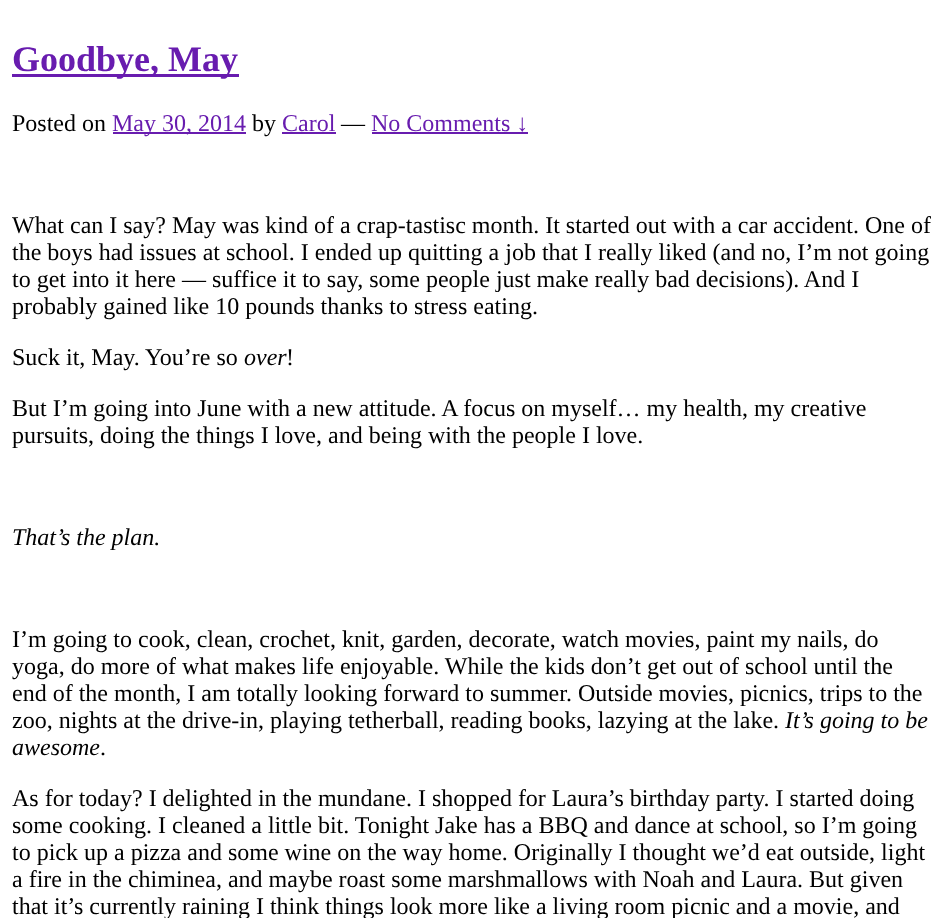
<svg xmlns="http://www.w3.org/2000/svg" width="943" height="918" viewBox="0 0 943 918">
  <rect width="100%" height="100%" fill="#ffffff"/>
  <rect x="12" y="74" width="227" height="3" fill="#681caf"/>
  <text x="12" y="71" font-family="Liberation Serif" font-size="36" font-weight="bold" fill="#681caf">Goodbye, May</text>
  <text x="12" y="131" font-family="Liberation Serif" font-size="24" fill="#000000">Posted on</text>
  <rect x="113" y="132" width="133" height="2" fill="#681caf"/>
  <text x="112" y="131" font-family="Liberation Serif" font-size="24" fill="#681caf">May 30, 2014</text>
  <text x="252" y="131" font-family="Liberation Serif" font-size="24" fill="#000000">by</text>
  <text x="282" y="131" font-family="Liberation Serif" font-size="24" fill="#681caf">Carol</text>
  <rect x="282" y="132" width="54" height="2" fill="#681caf"/>
  <text x="341" y="131" font-family="Liberation Serif" font-size="24" fill="#000000">—</text>
  <text x="371" y="131" font-family="Liberation Serif" font-size="24" fill="#681caf">No Comments ↓</text>
  <rect x="372" y="132" width="156" height="2" fill="#681caf"/>
  <text x="12" y="233" font-family="Liberation Serif" font-size="24" fill="#000000">What can I say? May was kind of a crap-tastisc month. It started out with a car accident. One of</text>
  <text x="12" y="260" font-family="Liberation Serif" font-size="24" fill="#000000">the boys had issues at school. I ended up quitting a job that I really liked (and no, I’m not going</text>
  <text x="12" y="287" font-family="Liberation Serif" font-size="24" fill="#000000">to get into it here — suffice it to say, some people just make really bad decisions). And I</text>
  <text x="12" y="314" font-family="Liberation Serif" font-size="24" fill="#000000">probably gained like 10 pounds thanks to stress eating.</text>
  <text x="12" y="365" font-family="Liberation Serif" font-size="24" fill="#000000">Suck it, May. You’re so</text>
  <text x="244" y="365" font-family="Liberation Serif" font-size="24" font-style="italic" fill="#000000">over</text>
  <text x="286" y="365" font-family="Liberation Serif" font-size="24" fill="#000000">!</text>
  <text x="12" y="416" font-family="Liberation Serif" font-size="24" fill="#000000">But I’m going into June with a new attitude. A focus on myself… my health, my creative</text>
  <text x="12" y="443" font-family="Liberation Serif" font-size="24" fill="#000000">pursuits, doing the things I love, and being with the people I love.</text>
  <text x="12" y="545" font-family="Liberation Serif" font-size="24" font-style="italic" fill="#000000">That’s the plan.</text>
  <text x="12" y="647" font-family="Liberation Serif" font-size="24" fill="#000000">I’m going to cook, clean, crochet, knit, garden, decorate, watch movies, paint my nails, do</text>
  <text x="12" y="674" font-family="Liberation Serif" font-size="24" fill="#000000">yoga, do more of what makes life enjoyable. While the kids don’t get out of school until the</text>
  <text x="12" y="701" font-family="Liberation Serif" font-size="24" fill="#000000">end of the month, I am totally looking forward to summer. Outside movies, picnics, trips to the</text>
  <text x="12" y="728" font-family="Liberation Serif" font-size="24" fill="#000000">zoo, nights at the drive-in, playing tetherball, reading books, lazying at the lake.</text>
  <text x="785" y="728" font-family="Liberation Serif" font-size="24" font-style="italic" fill="#000000">It’s going to be</text>
  <text x="12" y="755" font-family="Liberation Serif" font-size="24" font-style="italic" fill="#000000">awesome</text>
  <text x="100" y="755" font-family="Liberation Serif" font-size="24" fill="#000000">.</text>
  <text x="12" y="806" font-family="Liberation Serif" font-size="24" fill="#000000">As for today? I delighted in the mundane. I shopped for Laura’s birthday party. I started doing</text>
  <text x="12" y="833" font-family="Liberation Serif" font-size="24" fill="#000000">some cooking. I cleaned a little bit. Tonight Jake has a BBQ and dance at school, so I’m going</text>
  <text x="12" y="860" font-family="Liberation Serif" font-size="24" fill="#000000">to pick up a pizza and some wine on the way home. Originally I thought we’d eat outside, light</text>
  <text x="12" y="887" font-family="Liberation Serif" font-size="24" fill="#000000">a fire in the chiminea, and maybe roast some marshmallows with Noah and Laura. But given</text>
  <text x="12" y="914" font-family="Liberation Serif" font-size="24" fill="#000000">that it’s currently raining I think things look more like a living room picnic and a movie, and</text>
</svg>
